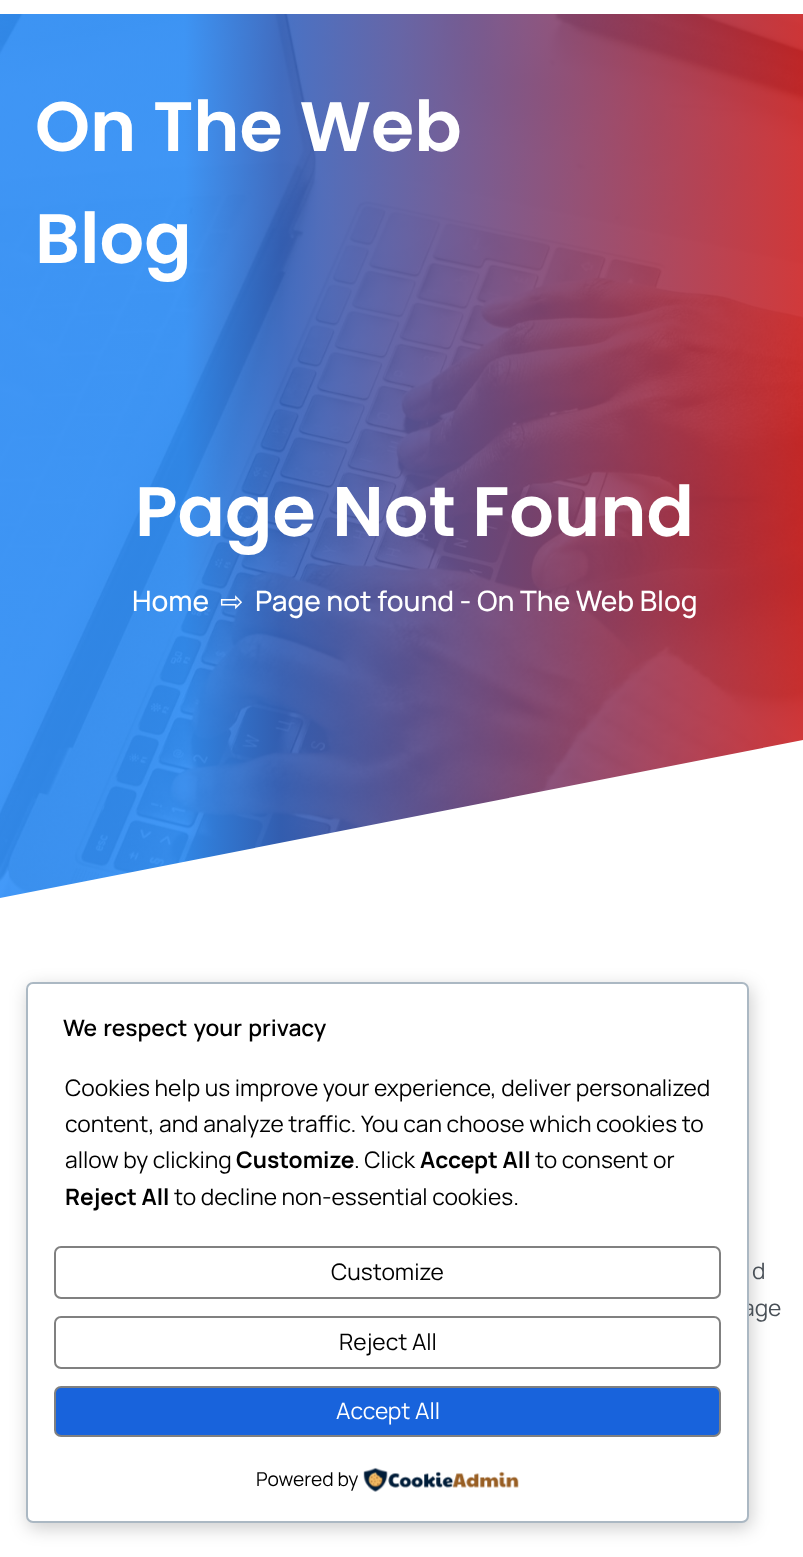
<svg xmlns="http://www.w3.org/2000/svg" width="803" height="1557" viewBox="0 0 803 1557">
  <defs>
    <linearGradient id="g1" gradientUnits="userSpaceOnUse" x1="0" y1="459" x2="803" y2="459"><stop offset="0.23" stop-color="#3594fd" stop-opacity="0.9"/><stop offset="0.35" stop-color="#3867c2" stop-opacity="0.9"/><stop offset="1" stop-color="#d12828" stop-opacity="0.9"/></linearGradient>
    <clipPath id="clip1"><rect x="0" y="732" width="803" height="173"/></clipPath>
    <filter id="blur1" x="-50%" y="-200%" width="200%" height="500%"><feGaussianBlur stdDeviation="9"/></filter>
  </defs>
  <rect width="100%" height="100%" fill="#ffffff"/>
  <image x="0" y="14" width="803" height="884" href="img1.png"/>
  <rect x="0" y="14" width="803" height="884" fill="url(#g1)"/>
  <text x="35" y="151" font-family="Poppins" font-size="70" font-weight="600" fill="#ffffff">On The Web</text>
  <text x="35" y="263" font-family="Poppins" font-size="70" font-weight="600" fill="#ffffff">Blog</text>
  <text x="135" y="536" font-family="Poppins" font-size="70" font-weight="600" fill="#ffffff">Page Not Found</text>
  <text x="132" y="611" font-family="Manrope" font-size="28" font-weight="500" fill="#ffffff">Home</text>
  <text x="220" y="611" font-family="DejaVu Sans" font-size="28" fill="#ffffff">⇨</text>
  <text x="255" y="611" font-family="Manrope" font-size="28" font-weight="500" fill="#ffffff">Page not found - On The Web Blog</text>
  <g clip-path="url(#clip1)">
    <path d="M803 898V906H0V898L803 740Z" fill="#ffffff"/>
  </g>
  <rect x="28" y="987" width="723" height="541" rx="7" fill="#000000" fill-opacity="0.2" filter="url(#blur1)"/>
  <text x="742" y="1316" font-family="Manrope" font-size="22.75" fill="#495057">age</text>
  <rect x="27" y="983" width="721" height="539" rx="6" fill="#ffffff" stroke="#abb8c3" stroke-width="2"/>
  <text x="63" y="1036" word-spacing="1.5" font-family="Manrope" font-size="22.75" font-weight="600" fill="#000000">We respect your privacy</text>
  <text x="65" y="1096" font-family="Manrope" font-size="22.75" fill="#000000">Cookies help us improve your experience, deliver personalized</text>
  <text x="65" y="1132" font-family="Manrope" font-size="22.75" fill="#000000">content, and analyze traffic. You can choose which cookies to</text>
  <text x="65" y="1168" font-family="Manrope" font-size="22.75" fill="#000000">allow by clicking</text>
  <text x="236" y="1168" font-family="Manrope" font-size="22.75" font-weight="bold" fill="#000000">Customize</text>
  <text x="354" y="1168" font-family="Manrope" font-size="22.75" fill="#000000">. Click</text>
  <text x="420" y="1168" font-family="Manrope" font-size="22.75" font-weight="bold" fill="#000000">Accept All</text>
  <text x="535" y="1168" font-family="Manrope" font-size="22.75" fill="#000000">to consent or</text>
  <text x="65" y="1205" font-family="Manrope" font-size="22.75" font-weight="bold" fill="#000000">Reject All</text>
  <text x="174" y="1205" font-family="Manrope" font-size="22.75" fill="#000000">to decline non-essential cookies.</text>
  <rect x="55" y="1247" width="665" height="51" rx="6" fill="none" stroke="#808080" stroke-width="2"/>
  <text x="331" y="1280" font-family="Manrope" font-size="22.75" fill="#000000">Customize</text>
  <rect x="55" y="1317" width="665" height="51" rx="6" fill="none" stroke="#808080" stroke-width="2"/>
  <text x="339" y="1350" font-family="Manrope" font-size="22.75" fill="#000000">Reject All</text>
  <rect x="55" y="1387" width="665" height="49" rx="6" fill="#1863dc" stroke="#808080" stroke-width="2"/>
  <text x="336" y="1419" font-family="Manrope" font-size="22.75" fill="#ffffff">Accept All</text>
  <text x="256" y="1486" font-family="Manrope" font-size="19.25" fill="#000000">Powered by</text>
  <image x="363" y="1467" width="156" height="25" href="img2.png"/>
  <text x="752" y="1279" font-family="Manrope" font-size="22.75" fill="#495057">d</text>
</svg>
